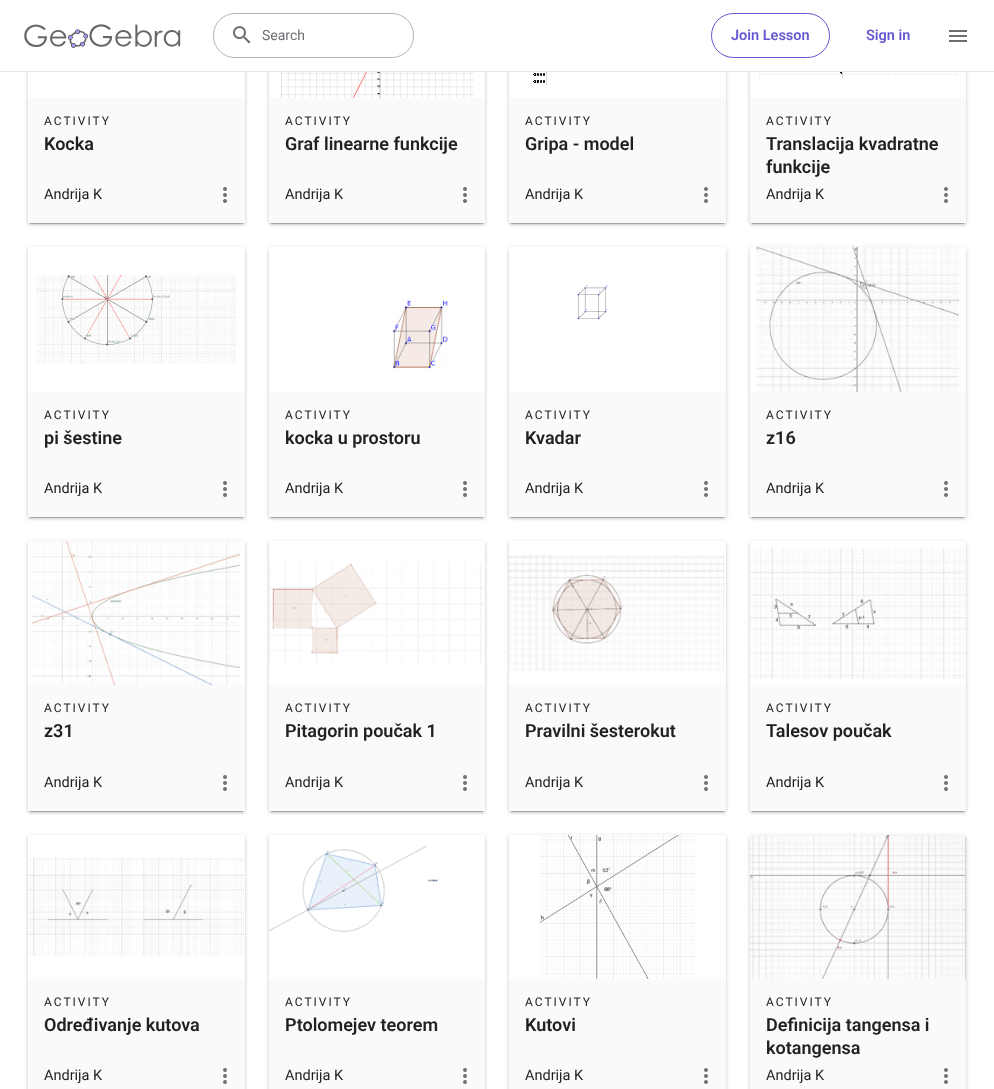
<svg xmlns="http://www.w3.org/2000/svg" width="994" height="1089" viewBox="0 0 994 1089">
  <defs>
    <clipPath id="clip1"><path d="M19 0H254V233H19ZM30-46H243C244-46 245-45 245-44V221C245 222 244 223 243 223H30C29 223 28 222 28 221V-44C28-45 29-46 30-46Z" clip-rule="evenodd"/></clipPath>
    <filter id="blur1" x="-50%" y="-200%" width="200%" height="500%"><feGaussianBlur stdDeviation="2.5"/></filter>
    <clipPath id="clip2"><path d="M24 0H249V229H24ZM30-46H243C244-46 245-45 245-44V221C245 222 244 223 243 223H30C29 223 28 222 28 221V-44C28-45 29-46 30-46Z" clip-rule="evenodd"/></clipPath>
    <filter id="blur2" x="-50%" y="-200%" width="200%" height="500%"><feGaussianBlur stdDeviation="1"/></filter>
    <clipPath id="clip3"><rect x="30" y="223" width="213" height="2"/></clipPath>
    <filter id="blur3" x="-50%" y="-200%" width="200%" height="500%"><feGaussianBlur stdDeviation="0.5"/></filter>
    <clipPath id="clip4"><path d="M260 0H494V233H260ZM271-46H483C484-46 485-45 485-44V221C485 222 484 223 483 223H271C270 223 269 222 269 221V-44C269-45 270-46 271-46Z" clip-rule="evenodd"/></clipPath>
    <clipPath id="clip5"><path d="M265 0H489V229H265ZM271-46H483C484-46 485-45 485-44V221C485 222 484 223 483 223H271C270 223 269 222 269 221V-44C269-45 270-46 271-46Z" clip-rule="evenodd"/></clipPath>
    <clipPath id="clip6"><rect x="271" y="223" width="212" height="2"/></clipPath>
    <clipPath id="clip7"><path d="M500 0H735V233H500ZM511-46H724C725-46 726-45 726-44V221C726 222 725 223 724 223H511C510 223 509 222 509 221V-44C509-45 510-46 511-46Z" clip-rule="evenodd"/></clipPath>
    <clipPath id="clip8"><path d="M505 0H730V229H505ZM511-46H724C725-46 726-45 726-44V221C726 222 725 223 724 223H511C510 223 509 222 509 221V-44C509-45 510-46 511-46Z" clip-rule="evenodd"/></clipPath>
    <clipPath id="clip9"><rect x="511" y="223" width="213" height="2"/></clipPath>
    <clipPath id="clip10"><path d="M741 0H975V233H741ZM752-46H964C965-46 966-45 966-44V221C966 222 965 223 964 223H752C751 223 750 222 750 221V-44C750-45 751-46 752-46Z" clip-rule="evenodd"/></clipPath>
    <clipPath id="clip11"><path d="M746 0H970V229H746ZM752-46H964C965-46 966-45 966-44V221C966 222 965 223 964 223H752C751 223 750 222 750 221V-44C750-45 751-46 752-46Z" clip-rule="evenodd"/></clipPath>
    <clipPath id="clip12"><rect x="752" y="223" width="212" height="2"/></clipPath>
    <clipPath id="clip13"><path d="M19 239H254V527H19ZM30 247H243C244 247 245 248 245 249V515C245 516 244 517 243 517H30C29 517 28 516 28 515V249C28 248 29 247 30 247Z" clip-rule="evenodd"/></clipPath>
    <clipPath id="clip14"><path d="M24 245H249V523H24ZM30 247H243C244 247 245 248 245 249V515C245 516 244 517 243 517H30C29 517 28 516 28 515V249C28 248 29 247 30 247Z" clip-rule="evenodd"/></clipPath>
    <clipPath id="clip15"><rect x="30" y="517" width="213" height="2"/></clipPath>
    <clipPath id="clip16"><path d="M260 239H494V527H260ZM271 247H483C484 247 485 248 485 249V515C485 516 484 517 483 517H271C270 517 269 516 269 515V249C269 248 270 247 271 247Z" clip-rule="evenodd"/></clipPath>
    <clipPath id="clip17"><path d="M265 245H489V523H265ZM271 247H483C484 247 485 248 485 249V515C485 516 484 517 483 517H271C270 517 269 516 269 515V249C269 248 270 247 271 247Z" clip-rule="evenodd"/></clipPath>
    <clipPath id="clip18"><rect x="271" y="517" width="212" height="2"/></clipPath>
    <clipPath id="clip19"><path d="M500 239H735V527H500ZM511 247H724C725 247 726 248 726 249V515C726 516 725 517 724 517H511C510 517 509 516 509 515V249C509 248 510 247 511 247Z" clip-rule="evenodd"/></clipPath>
    <clipPath id="clip20"><path d="M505 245H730V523H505ZM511 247H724C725 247 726 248 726 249V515C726 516 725 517 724 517H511C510 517 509 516 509 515V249C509 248 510 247 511 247Z" clip-rule="evenodd"/></clipPath>
    <clipPath id="clip21"><rect x="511" y="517" width="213" height="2"/></clipPath>
    <clipPath id="clip22"><path d="M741 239H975V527H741ZM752 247H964C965 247 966 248 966 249V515C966 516 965 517 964 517H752C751 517 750 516 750 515V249C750 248 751 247 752 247Z" clip-rule="evenodd"/></clipPath>
    <clipPath id="clip23"><path d="M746 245H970V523H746ZM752 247H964C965 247 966 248 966 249V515C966 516 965 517 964 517H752C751 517 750 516 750 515V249C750 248 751 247 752 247Z" clip-rule="evenodd"/></clipPath>
    <clipPath id="clip24"><rect x="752" y="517" width="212" height="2"/></clipPath>
    <clipPath id="clip25"><path d="M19 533H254V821H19ZM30 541H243C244 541 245 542 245 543V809C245 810 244 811 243 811H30C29 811 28 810 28 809V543C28 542 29 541 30 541Z" clip-rule="evenodd"/></clipPath>
    <clipPath id="clip26"><path d="M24 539H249V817H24ZM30 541H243C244 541 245 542 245 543V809C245 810 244 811 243 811H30C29 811 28 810 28 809V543C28 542 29 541 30 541Z" clip-rule="evenodd"/></clipPath>
    <clipPath id="clip27"><rect x="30" y="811" width="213" height="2"/></clipPath>
    <clipPath id="clip28"><path d="M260 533H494V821H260ZM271 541H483C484 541 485 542 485 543V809C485 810 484 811 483 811H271C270 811 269 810 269 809V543C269 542 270 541 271 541Z" clip-rule="evenodd"/></clipPath>
    <clipPath id="clip29"><path d="M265 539H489V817H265ZM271 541H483C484 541 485 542 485 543V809C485 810 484 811 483 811H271C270 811 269 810 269 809V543C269 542 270 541 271 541Z" clip-rule="evenodd"/></clipPath>
    <clipPath id="clip30"><rect x="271" y="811" width="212" height="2"/></clipPath>
    <clipPath id="clip31"><path d="M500 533H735V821H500ZM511 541H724C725 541 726 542 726 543V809C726 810 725 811 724 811H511C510 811 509 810 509 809V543C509 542 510 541 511 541Z" clip-rule="evenodd"/></clipPath>
    <clipPath id="clip32"><path d="M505 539H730V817H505ZM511 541H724C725 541 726 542 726 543V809C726 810 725 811 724 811H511C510 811 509 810 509 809V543C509 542 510 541 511 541Z" clip-rule="evenodd"/></clipPath>
    <clipPath id="clip33"><rect x="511" y="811" width="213" height="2"/></clipPath>
    <clipPath id="clip34"><path d="M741 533H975V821H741ZM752 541H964C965 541 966 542 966 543V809C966 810 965 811 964 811H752C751 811 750 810 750 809V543C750 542 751 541 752 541Z" clip-rule="evenodd"/></clipPath>
    <clipPath id="clip35"><path d="M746 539H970V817H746ZM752 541H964C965 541 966 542 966 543V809C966 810 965 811 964 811H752C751 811 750 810 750 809V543C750 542 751 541 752 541Z" clip-rule="evenodd"/></clipPath>
    <clipPath id="clip36"><rect x="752" y="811" width="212" height="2"/></clipPath>
    <clipPath id="clip37"><path d="M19 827H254V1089H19ZM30 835H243C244 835 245 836 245 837V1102C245 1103 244 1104 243 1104H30C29 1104 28 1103 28 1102V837C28 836 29 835 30 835Z" clip-rule="evenodd"/></clipPath>
    <clipPath id="clip38"><path d="M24 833H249V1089H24ZM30 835H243C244 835 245 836 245 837V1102C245 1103 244 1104 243 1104H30C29 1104 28 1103 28 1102V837C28 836 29 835 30 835Z" clip-rule="evenodd"/></clipPath>
    <clipPath id="clip39"><path d="M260 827H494V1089H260ZM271 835H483C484 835 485 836 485 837V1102C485 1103 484 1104 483 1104H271C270 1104 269 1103 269 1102V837C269 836 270 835 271 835Z" clip-rule="evenodd"/></clipPath>
    <clipPath id="clip40"><path d="M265 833H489V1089H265ZM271 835H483C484 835 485 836 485 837V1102C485 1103 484 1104 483 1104H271C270 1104 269 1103 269 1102V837C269 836 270 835 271 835Z" clip-rule="evenodd"/></clipPath>
    <clipPath id="clip41"><path d="M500 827H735V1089H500ZM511 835H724C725 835 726 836 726 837V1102C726 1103 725 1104 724 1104H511C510 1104 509 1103 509 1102V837C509 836 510 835 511 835Z" clip-rule="evenodd"/></clipPath>
    <clipPath id="clip42"><path d="M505 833H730V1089H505ZM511 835H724C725 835 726 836 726 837V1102C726 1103 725 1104 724 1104H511C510 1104 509 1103 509 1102V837C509 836 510 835 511 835Z" clip-rule="evenodd"/></clipPath>
  </defs>
  <rect width="100%" height="100%" fill="#ffffff"/>
  <g clip-path="url(#clip1)">
    <rect x="28" y="-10" width="217" height="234" rx="2" fill="#000000" fill-opacity="0.12" filter="url(#blur1)"/>
  </g>
  <g clip-path="url(#clip2)">
    <rect x="28" y="-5" width="217" height="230" rx="2" fill="#000000" fill-opacity="0.14" filter="url(#blur2)"/>
  </g>
  <g clip-path="url(#clip3)">
    <rect x="30" y="-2" width="213" height="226" fill="#000000" fill-opacity="0.2" filter="url(#blur3)"/>
  </g>
  <g clip-path="url(#clip4)">
    <rect x="269" y="-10" width="216" height="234" rx="2" fill="#000000" fill-opacity="0.12" filter="url(#blur1)"/>
  </g>
  <g clip-path="url(#clip5)">
    <rect x="269" y="-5" width="216" height="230" rx="2" fill="#000000" fill-opacity="0.14" filter="url(#blur2)"/>
  </g>
  <g clip-path="url(#clip6)">
    <rect x="271" y="-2" width="212" height="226" fill="#000000" fill-opacity="0.2" filter="url(#blur3)"/>
  </g>
  <g clip-path="url(#clip7)">
    <rect x="509" y="-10" width="217" height="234" rx="2" fill="#000000" fill-opacity="0.12" filter="url(#blur1)"/>
  </g>
  <g clip-path="url(#clip8)">
    <rect x="509" y="-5" width="217" height="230" rx="2" fill="#000000" fill-opacity="0.14" filter="url(#blur2)"/>
  </g>
  <g clip-path="url(#clip9)">
    <rect x="511" y="-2" width="213" height="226" fill="#000000" fill-opacity="0.2" filter="url(#blur3)"/>
  </g>
  <g clip-path="url(#clip10)">
    <rect x="750" y="-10" width="216" height="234" rx="2" fill="#000000" fill-opacity="0.12" filter="url(#blur1)"/>
  </g>
  <g clip-path="url(#clip11)">
    <rect x="750" y="-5" width="216" height="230" rx="2" fill="#000000" fill-opacity="0.14" filter="url(#blur2)"/>
  </g>
  <g clip-path="url(#clip12)">
    <rect x="752" y="-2" width="212" height="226" fill="#000000" fill-opacity="0.2" filter="url(#blur3)"/>
  </g>
  <rect x="25" y="0" width="944" height="71" fill="#ffffff"/>
  <rect x="0" y="71" width="994" height="1" fill="#e6e6eb"/>
  <image x="24" y="24" width="157" height="24" href="img1.png"/>
  <rect x="213.5" y="13.5" width="200" height="44" rx="21.5" fill="none" stroke="#b4b3ba"/>
  <image x="233" y="26" width="18" height="18" href="img2.png"/>
  <text x="262" y="40" font-family="Roboto" font-size="14" fill="#6e6d73">Search</text>
  <rect x="711.5" y="13.5" width="118" height="44" rx="22" fill="none" stroke="#6557d2"/>
  <text x="731" y="40" font-family="Roboto" font-size="14.5" font-weight="600" fill="#6557d2">Join Lesson</text>
  <text x="866" y="40" font-family="Roboto" font-size="14.5" font-weight="600" fill="#6557d2">Sign in</text>
  <image x="949" y="30" width="18" height="12" href="img3.png"/>
  <rect x="28" y="98" width="217" height="125" fill="#fafafa"/>
  <text x="44" y="125" font-family="Roboto" font-size="12" letter-spacing="2" fill="#212121">ACTIVITY</text>
  <text x="44" y="150" font-family="Roboto" font-size="18" font-weight="600" fill="#212121">Kocka</text>
  <text x="44" y="199" font-family="Roboto" font-size="14.5" fill="#212121">Andrija K</text>
  <image x="223" y="187" width="4" height="16" href="img4.png"/>
  <image x="279" y="72" width="195" height="26" href="img5.png"/>
  <rect x="269" y="98" width="216" height="125" fill="#fafafa"/>
  <text x="285" y="125" font-family="Roboto" font-size="12" letter-spacing="2" fill="#212121">ACTIVITY</text>
  <text x="285" y="150" font-family="Roboto" font-size="18" font-weight="600" fill="#212121">Graf linearne funkcije</text>
  <text x="285" y="199" font-family="Roboto" font-size="14.5" fill="#212121">Andrija K</text>
  <image x="463" y="187" width="4" height="16" href="img4.png"/>
  <image x="517" y="72" width="200" height="13" href="img6.png"/>
  <rect x="509" y="98" width="217" height="125" fill="#fafafa"/>
  <text x="525" y="125" font-family="Roboto" font-size="12" letter-spacing="2" fill="#212121">ACTIVITY</text>
  <text x="525" y="150" font-family="Roboto" font-size="18" font-weight="600" fill="#212121">Gripa - model</text>
  <text x="525" y="199" font-family="Roboto" font-size="14.5" fill="#212121">Andrija K</text>
  <image x="704" y="187" width="4" height="16" href="img4.png"/>
  <image x="758" y="72" width="200" height="7" href="img7.png"/>
  <rect x="750" y="98" width="216" height="125" fill="#fafafa"/>
  <text x="766" y="125" font-family="Roboto" font-size="12" letter-spacing="2" fill="#212121">ACTIVITY</text>
  <text x="766" y="150" font-family="Roboto" font-size="18" font-weight="600" fill="#212121">Translacija kvadratne</text>
  <text x="766" y="173" font-family="Roboto" font-size="18" font-weight="600" fill="#212121">funkcije</text>
  <text x="766" y="199" font-family="Roboto" font-size="14.5" fill="#212121">Andrija K</text>
  <image x="944" y="187" width="4" height="16" href="img4.png"/>
  <g clip-path="url(#clip13)">
    <rect x="28" y="248" width="217" height="270" rx="2" fill="#000000" fill-opacity="0.12" filter="url(#blur1)"/>
  </g>
  <g clip-path="url(#clip14)">
    <rect x="28" y="249" width="217" height="270" rx="2" fill="#000000" fill-opacity="0.14" filter="url(#blur2)"/>
  </g>
  <g clip-path="url(#clip15)">
    <rect x="30" y="252" width="213" height="266" fill="#000000" fill-opacity="0.2" filter="url(#blur3)"/>
  </g>
  <image x="36" y="275" width="200" height="88" href="img8.png"/>
  <rect x="28" y="392" width="217" height="125" fill="#fafafa"/>
  <text x="44" y="419" font-family="Roboto" font-size="12" letter-spacing="2" fill="#212121">ACTIVITY</text>
  <text x="44" y="444" font-family="Roboto" font-size="18" font-weight="600" fill="#212121">pi šestine</text>
  <text x="44" y="493" font-family="Roboto" font-size="14.5" fill="#212121">Andrija K</text>
  <image x="223" y="481" width="4" height="16" href="img4.png"/>
  <g clip-path="url(#clip16)">
    <rect x="269" y="248" width="216" height="270" rx="2" fill="#000000" fill-opacity="0.12" filter="url(#blur1)"/>
  </g>
  <g clip-path="url(#clip17)">
    <rect x="269" y="249" width="216" height="270" rx="2" fill="#000000" fill-opacity="0.14" filter="url(#blur2)"/>
  </g>
  <g clip-path="url(#clip18)">
    <rect x="271" y="252" width="212" height="266" fill="#000000" fill-opacity="0.2" filter="url(#blur3)"/>
  </g>
  <image x="393" y="300" width="55" height="69" href="img9.png"/>
  <rect x="269" y="392" width="216" height="125" fill="#fafafa"/>
  <text x="285" y="419" font-family="Roboto" font-size="12" letter-spacing="2" fill="#212121">ACTIVITY</text>
  <text x="285" y="444" font-family="Roboto" font-size="18" font-weight="600" fill="#212121">kocka u prostoru</text>
  <text x="285" y="493" font-family="Roboto" font-size="14.5" fill="#212121">Andrija K</text>
  <image x="463" y="481" width="4" height="16" href="img4.png"/>
  <g clip-path="url(#clip19)">
    <rect x="509" y="248" width="217" height="270" rx="2" fill="#000000" fill-opacity="0.12" filter="url(#blur1)"/>
  </g>
  <g clip-path="url(#clip20)">
    <rect x="509" y="249" width="217" height="270" rx="2" fill="#000000" fill-opacity="0.14" filter="url(#blur2)"/>
  </g>
  <g clip-path="url(#clip21)">
    <rect x="511" y="252" width="213" height="266" fill="#000000" fill-opacity="0.2" filter="url(#blur3)"/>
  </g>
  <image x="577" y="285" width="31" height="35" href="img10.png"/>
  <rect x="509" y="392" width="217" height="125" fill="#fafafa"/>
  <text x="525" y="419" font-family="Roboto" font-size="12" letter-spacing="2" fill="#212121">ACTIVITY</text>
  <text x="525" y="444" font-family="Roboto" font-size="18" font-weight="600" fill="#212121">Kvadar</text>
  <text x="525" y="493" font-family="Roboto" font-size="14.5" fill="#212121">Andrija K</text>
  <image x="704" y="481" width="4" height="16" href="img4.png"/>
  <g clip-path="url(#clip22)">
    <rect x="750" y="248" width="216" height="270" rx="2" fill="#000000" fill-opacity="0.12" filter="url(#blur1)"/>
  </g>
  <g clip-path="url(#clip23)">
    <rect x="750" y="249" width="216" height="270" rx="2" fill="#000000" fill-opacity="0.14" filter="url(#blur2)"/>
  </g>
  <g clip-path="url(#clip24)">
    <rect x="752" y="252" width="212" height="266" fill="#000000" fill-opacity="0.2" filter="url(#blur3)"/>
  </g>
  <image x="756" y="247" width="203" height="145" href="img11.png"/>
  <rect x="750" y="392" width="216" height="125" fill="#fafafa"/>
  <text x="766" y="419" font-family="Roboto" font-size="12" letter-spacing="2" fill="#212121">ACTIVITY</text>
  <text x="766" y="444" font-family="Roboto" font-size="18" font-weight="600" fill="#212121">z16</text>
  <text x="766" y="493" font-family="Roboto" font-size="14.5" fill="#212121">Andrija K</text>
  <image x="944" y="481" width="4" height="16" href="img4.png"/>
  <g clip-path="url(#clip25)">
    <rect x="28" y="542" width="217" height="270" rx="2" fill="#000000" fill-opacity="0.12" filter="url(#blur1)"/>
  </g>
  <g clip-path="url(#clip26)">
    <rect x="28" y="543" width="217" height="270" rx="2" fill="#000000" fill-opacity="0.14" filter="url(#blur2)"/>
  </g>
  <g clip-path="url(#clip27)">
    <rect x="30" y="546" width="213" height="266" fill="#000000" fill-opacity="0.2" filter="url(#blur3)"/>
  </g>
  <image x="32" y="541" width="208" height="144" href="img12.png"/>
  <rect x="28" y="685" width="217" height="126" fill="#fafafa"/>
  <text x="44" y="712" font-family="Roboto" font-size="12" letter-spacing="2" fill="#212121">ACTIVITY</text>
  <text x="44" y="737" font-family="Roboto" font-size="18" font-weight="600" fill="#212121">z31</text>
  <text x="44" y="787" font-family="Roboto" font-size="14.5" fill="#212121">Andrija K</text>
  <image x="223" y="775" width="4" height="16" href="img4.png"/>
  <g clip-path="url(#clip28)">
    <rect x="269" y="542" width="216" height="270" rx="2" fill="#000000" fill-opacity="0.12" filter="url(#blur1)"/>
  </g>
  <g clip-path="url(#clip29)">
    <rect x="269" y="543" width="216" height="270" rx="2" fill="#000000" fill-opacity="0.14" filter="url(#blur2)"/>
  </g>
  <g clip-path="url(#clip30)">
    <rect x="271" y="546" width="212" height="266" fill="#000000" fill-opacity="0.2" filter="url(#blur3)"/>
  </g>
  <image x="269" y="562" width="216" height="102" href="img13.png"/>
  <rect x="269" y="685" width="216" height="126" fill="#fafafa"/>
  <text x="285" y="712" font-family="Roboto" font-size="12" letter-spacing="2" fill="#212121">ACTIVITY</text>
  <text x="285" y="737" font-family="Roboto" font-size="18" font-weight="600" fill="#212121">Pitagorin poučak 1</text>
  <text x="285" y="787" font-family="Roboto" font-size="14.5" fill="#212121">Andrija K</text>
  <image x="463" y="775" width="4" height="16" href="img4.png"/>
  <g clip-path="url(#clip31)">
    <rect x="509" y="542" width="217" height="270" rx="2" fill="#000000" fill-opacity="0.12" filter="url(#blur1)"/>
  </g>
  <g clip-path="url(#clip32)">
    <rect x="509" y="543" width="217" height="270" rx="2" fill="#000000" fill-opacity="0.14" filter="url(#blur2)"/>
  </g>
  <g clip-path="url(#clip33)">
    <rect x="511" y="546" width="213" height="266" fill="#000000" fill-opacity="0.2" filter="url(#blur3)"/>
  </g>
  <image x="509" y="555" width="216" height="116" href="img14.png"/>
  <rect x="509" y="685" width="217" height="126" fill="#fafafa"/>
  <text x="525" y="712" font-family="Roboto" font-size="12" letter-spacing="2" fill="#212121">ACTIVITY</text>
  <text x="525" y="737" font-family="Roboto" font-size="18" font-weight="600" fill="#212121">Pravilni šesterokut</text>
  <text x="525" y="787" font-family="Roboto" font-size="14.5" fill="#212121">Andrija K</text>
  <image x="704" y="775" width="4" height="16" href="img4.png"/>
  <g clip-path="url(#clip34)">
    <rect x="750" y="542" width="216" height="270" rx="2" fill="#000000" fill-opacity="0.12" filter="url(#blur1)"/>
  </g>
  <g clip-path="url(#clip35)">
    <rect x="750" y="543" width="216" height="270" rx="2" fill="#000000" fill-opacity="0.14" filter="url(#blur2)"/>
  </g>
  <g clip-path="url(#clip36)">
    <rect x="752" y="546" width="212" height="266" fill="#000000" fill-opacity="0.2" filter="url(#blur3)"/>
  </g>
  <image x="750" y="548" width="216" height="131" href="img15.png"/>
  <rect x="750" y="685" width="216" height="126" fill="#fafafa"/>
  <text x="766" y="712" font-family="Roboto" font-size="12" letter-spacing="2" fill="#212121">ACTIVITY</text>
  <text x="766" y="737" font-family="Roboto" font-size="18" font-weight="600" fill="#212121">Talesov poučak</text>
  <text x="766" y="787" font-family="Roboto" font-size="14.5" fill="#212121">Andrija K</text>
  <image x="944" y="775" width="4" height="16" href="img4.png"/>
  <g clip-path="url(#clip37)">
    <rect x="28" y="836" width="217" height="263" rx="2" fill="#000000" fill-opacity="0.12" filter="url(#blur1)"/>
  </g>
  <g clip-path="url(#clip38)">
    <rect x="28" y="837" width="217" height="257" rx="2" fill="#000000" fill-opacity="0.14" filter="url(#blur2)"/>
  </g>
  <image x="28" y="858" width="216" height="98" href="img16.png"/>
  <rect x="28" y="979" width="217" height="110" fill="#fafafa"/>
  <text x="44" y="1006" font-family="Roboto" font-size="12" letter-spacing="2" fill="#212121">ACTIVITY</text>
  <text x="44" y="1031" font-family="Roboto" font-size="18" font-weight="600" fill="#212121">Određivanje kutova</text>
  <text x="44" y="1080" font-family="Roboto" font-size="14.5" fill="#212121">Andrija K</text>
  <image x="223" y="1068" width="4" height="16" href="img4.png"/>
  <g clip-path="url(#clip39)">
    <rect x="269" y="836" width="216" height="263" rx="2" fill="#000000" fill-opacity="0.12" filter="url(#blur1)"/>
  </g>
  <g clip-path="url(#clip40)">
    <rect x="269" y="837" width="216" height="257" rx="2" fill="#000000" fill-opacity="0.14" filter="url(#blur2)"/>
  </g>
  <image x="269" y="846" width="169" height="87" href="img17.png"/>
  <rect x="269" y="979" width="216" height="110" fill="#fafafa"/>
  <text x="285" y="1006" font-family="Roboto" font-size="12" letter-spacing="2" fill="#212121">ACTIVITY</text>
  <text x="285" y="1031" font-family="Roboto" font-size="18" font-weight="600" fill="#212121">Ptolomejev teorem</text>
  <text x="285" y="1080" font-family="Roboto" font-size="14.5" fill="#212121">Andrija K</text>
  <image x="463" y="1068" width="4" height="16" href="img4.png"/>
  <g clip-path="url(#clip41)">
    <rect x="509" y="836" width="217" height="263" rx="2" fill="#000000" fill-opacity="0.12" filter="url(#blur1)"/>
  </g>
  <g clip-path="url(#clip42)">
    <rect x="509" y="837" width="217" height="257" rx="2" fill="#000000" fill-opacity="0.14" filter="url(#blur2)"/>
  </g>
  <image x="540" y="835" width="155" height="144" href="img18.png"/>
  <rect x="509" y="979" width="217" height="110" fill="#fafafa"/>
  <text x="525" y="1006" font-family="Roboto" font-size="12" letter-spacing="2" fill="#212121">ACTIVITY</text>
  <text x="525" y="1031" font-family="Roboto" font-size="18" font-weight="600" fill="#212121">Kutovi</text>
  <text x="525" y="1080" font-family="Roboto" font-size="14.5" fill="#212121">Andrija K</text>
  <image x="704" y="1068" width="4" height="16" href="img4.png"/>
  <rect x="750" y="836" width="216" height="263" rx="2" fill="#000000" fill-opacity="0.12" filter="url(#blur1)"/>
  <rect x="750" y="837" width="216" height="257" rx="2" fill="#000000" fill-opacity="0.14" filter="url(#blur2)"/>
  <image x="750" y="835" width="215" height="144" href="img19.png"/>
  <rect x="750" y="979" width="216" height="110" fill="#fafafa"/>
  <text x="766" y="1006" font-family="Roboto" font-size="12" letter-spacing="2" fill="#212121">ACTIVITY</text>
  <text x="766" y="1031" font-family="Roboto" font-size="18" font-weight="600" fill="#212121">Definicija tangensa i</text>
  <text x="766" y="1054" font-family="Roboto" font-size="18" font-weight="600" fill="#212121">kotangensa</text>
  <text x="766" y="1080" font-family="Roboto" font-size="14.5" fill="#212121">Andrija K</text>
  <image x="944" y="1068" width="4" height="16" href="img4.png"/>
</svg>
